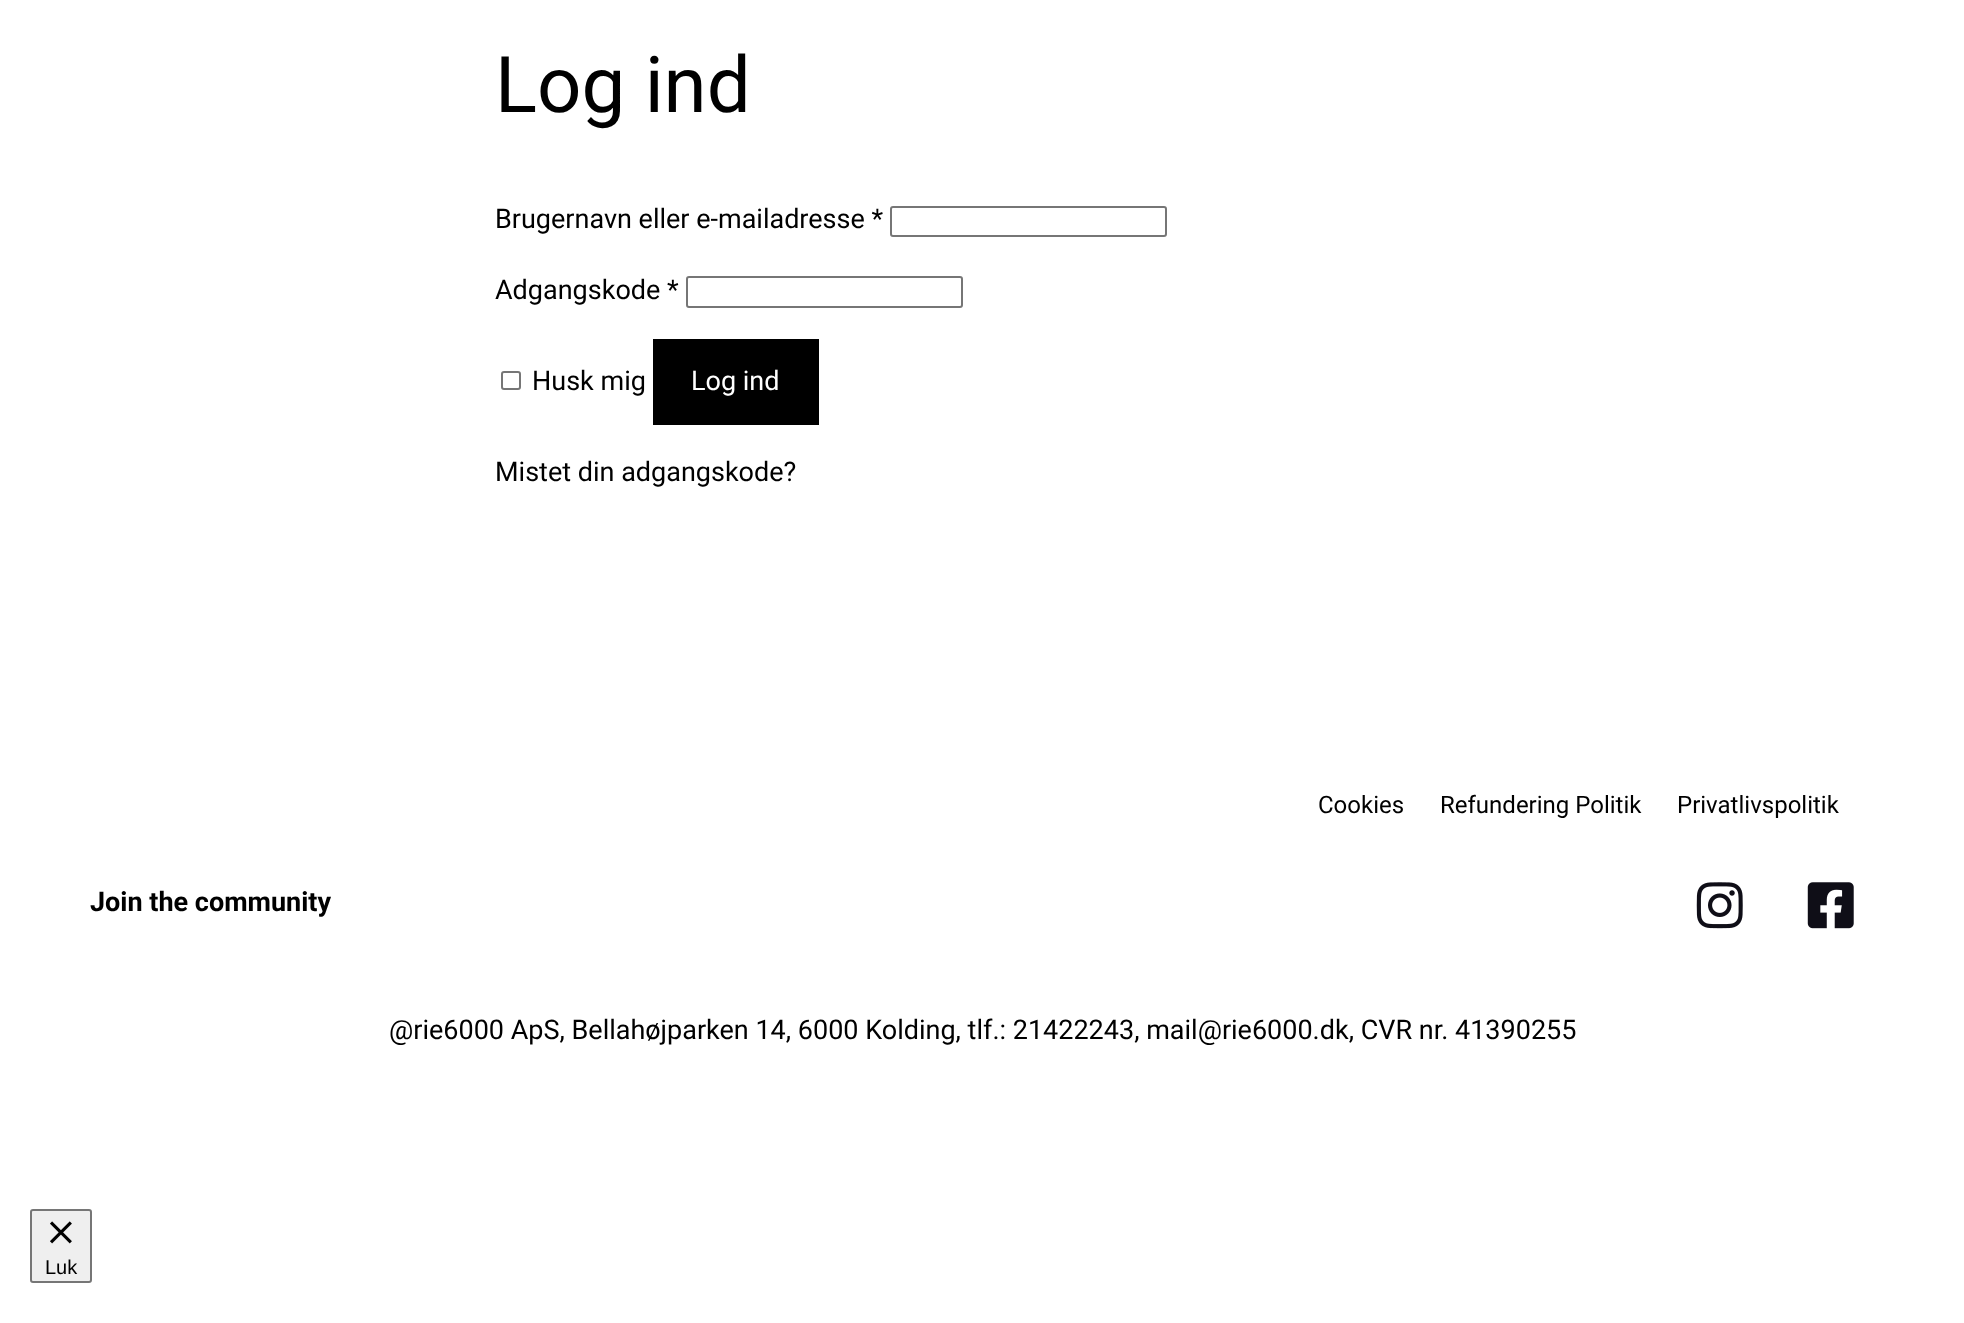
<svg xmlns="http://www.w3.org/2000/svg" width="1964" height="1323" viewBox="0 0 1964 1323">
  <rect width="100%" height="100%" fill="#ffffff"/>
  <text x="495" y="112" font-family="Roboto" font-size="78" fill="#000000">Log ind</text>
  <text x="495" y="228" font-family="Roboto" font-size="27" fill="#000000">Brugernavn eller e-mailadresse *</text>
  <rect x="891" y="207" width="275" height="29" rx="2" fill="none" stroke="#767676" stroke-width="2"/>
  <text x="495" y="299" font-family="Roboto" font-size="27" fill="#000000">Adgangskode *</text>
  <rect x="687" y="277" width="275" height="30" rx="2" fill="none" stroke="#767676" stroke-width="2"/>
  <rect x="502" y="372" width="18" height="17" rx="2" fill="none" stroke="#767676" stroke-width="2"/>
  <text x="532" y="390" font-family="Roboto" font-size="27" fill="#000000">Husk mig</text>
  <rect x="653" y="339" width="166" height="86" fill="#000000"/>
  <text x="691" y="390" font-family="Roboto" font-size="27" fill="#ffffff">Log ind</text>
  <text x="495" y="481" font-family="Roboto" font-size="27" fill="#000000">Mistet din adgangskode?</text>
  <text x="1318" y="813" font-family="Roboto" font-size="24" fill="#000000">Cookies</text>
  <text x="1440" y="813" font-family="Roboto" font-size="24" fill="#000000">Refundering Politik</text>
  <text x="1677" y="813" font-family="Roboto" font-size="24" fill="#000000">Privatlivspolitik</text>
  <image x="1696" y="882" width="47" height="47" href="img1.png"/>
  <image x="1807" y="882" width="47" height="47" href="img2.png"/>
  <text x="90" y="911" font-family="Roboto" font-size="27" font-weight="bold" fill="#000000">Join the community</text>
  <text x="389" y="1039" font-family="Roboto" font-size="27" fill="#000000">@rie6000 ApS, Bellahøjparken 14, 6000 Kolding, tlf.: 21422243, mail@rie6000.dk, CVR nr. 41390255</text>
  <rect x="31" y="1210" width="60" height="72" rx="2" fill="#efefef" stroke="#767676" stroke-width="2"/>
  <image x="50" y="1221" width="22" height="23" href="img3.png"/>
  <text x="45" y="1274" font-family="Liberation Sans" font-size="20" fill="#000000">Luk</text>
</svg>
